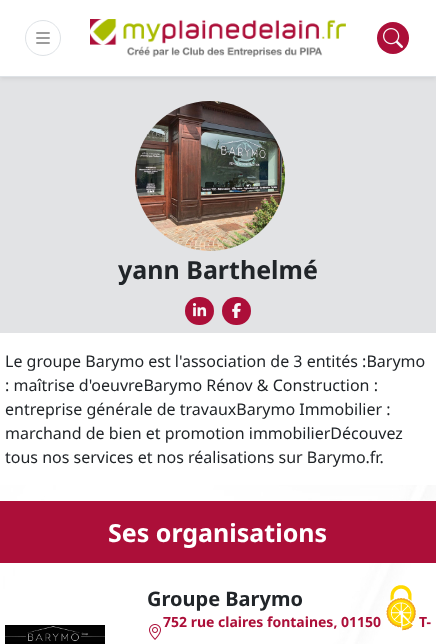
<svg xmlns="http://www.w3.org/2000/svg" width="436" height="644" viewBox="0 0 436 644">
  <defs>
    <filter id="blur1" x="-50%" y="-200%" width="200%" height="500%"><feGaussianBlur stdDeviation="2"/></filter>
  </defs>
  <rect width="100%" height="100%" fill="#ffffff"/>
  <image x="0" y="485" width="436" height="159" href="img1.png"/>
  <rect x="431" y="77" width="5" height="256" fill="#e2e3e5"/>
  <rect x="0" y="77" width="431" height="256" fill="#e2e3e5"/>
  <rect x="0" y="2" width="436" height="77" fill="#000000" fill-opacity="0.07" filter="url(#blur1)"/>
  <rect x="0" y="0" width="436" height="76" fill="#ffffff"/>
  <rect x="0" y="76" width="436" height="1" fill="#dee2e6"/>
  <circle cx="43" cy="38" r="17.5" fill="none" stroke="#dee2e6"/>
  <image x="36" y="32" width="14" height="12" href="img2.png"/>
  <image x="90" y="19" width="256" height="38" href="img3.png"/>
  <circle cx="393" cy="38" r="16" fill="#ac0f39"/>
  <image x="383" y="28" width="20" height="20" href="img4.png"/>
  <image x="135" y="101" width="150" height="150" href="img5.png"/>
  <text x="118" y="279" font-family="Noto Sans" font-size="25" font-weight="bold" fill="#212529">yann Barthelmé</text>
  <rect x="185" y="297" width="29" height="28" rx="14" fill="#ac0f39"/>
  <image x="193" y="303" width="14" height="14" href="img6.png"/>
  <rect x="222" y="297" width="29" height="28" rx="14" fill="#ac0f39"/>
  <image x="232" y="303" width="9" height="15" href="img7.png"/>
  <text x="5" y="367" font-family="Noto Sans" font-size="16" fill="#212529">Le groupe Barymo est l'association de 3 entités :Barymo</text>
  <text x="5" y="391" font-family="Noto Sans" font-size="16" fill="#212529">: maîtrise d'oeuvreBarymo Rénov &amp; Construction :</text>
  <text x="5" y="415" font-family="Noto Sans" font-size="16" fill="#212529">entreprise générale de travauxBarymo Immobilier :</text>
  <text x="5" y="439" font-family="Noto Sans" font-size="16" fill="#212529">marchand de bien et promotion immobilierDécouvez</text>
  <text x="5" y="463" font-family="Noto Sans" font-size="16" fill="#212529">tous nos services et nos réalisations sur Barymo.fr.</text>
  <rect x="431" y="501" width="5" height="62" fill="#ac0f39"/>
  <rect x="0" y="501" width="431" height="62" fill="#ac0f39"/>
  <text x="108" y="542" font-family="Noto Sans" font-size="25" font-weight="bold" fill="#ffffff">Ses organisations</text>
  <text x="147" y="606" font-family="Noto Sans" font-size="20" font-weight="bold" fill="#212529">Groupe Barymo</text>
  <text x="163" y="627" font-family="Noto Sans" font-size="14" font-weight="bold" fill="#ac0f39">752 rue claires fontaines, 01150</text>
  <text x="419" y="627" font-family="Noto Sans" font-size="14" font-weight="bold" fill="#ac0f39">T-</text>
  <image x="149" y="624" width="12" height="16" href="img8.png"/>
  <image x="5" y="625" width="100" height="19" href="img9.png"/>
  <image x="386" y="585" width="30" height="46" href="img10.png"/>
</svg>
